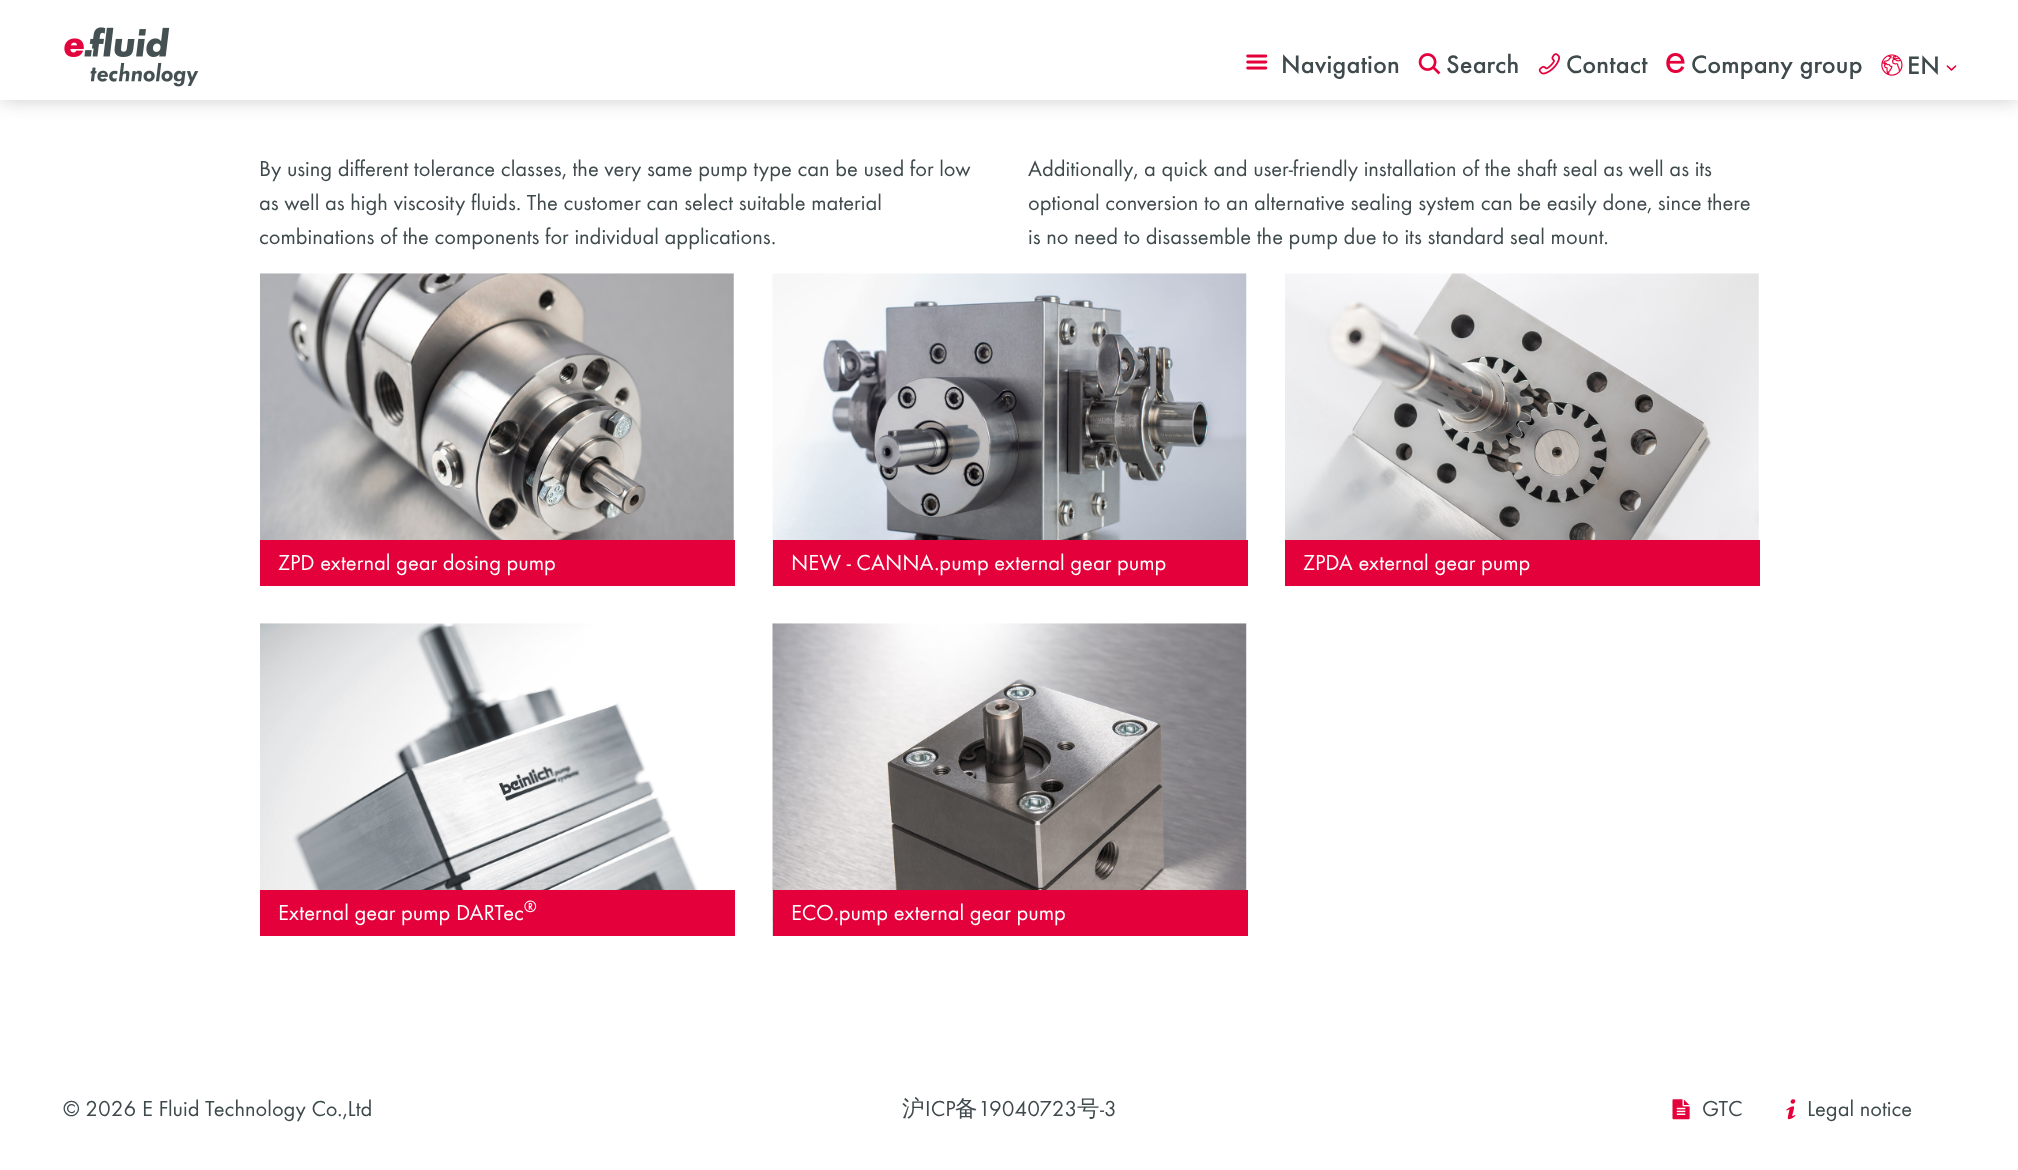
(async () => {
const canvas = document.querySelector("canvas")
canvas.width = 2018
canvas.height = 1170
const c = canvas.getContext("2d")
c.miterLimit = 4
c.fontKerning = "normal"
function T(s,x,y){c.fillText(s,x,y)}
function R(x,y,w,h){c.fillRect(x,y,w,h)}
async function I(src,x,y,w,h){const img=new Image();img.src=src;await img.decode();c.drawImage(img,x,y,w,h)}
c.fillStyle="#fff"
R(0,0,2018,1170)
c.fillStyle="#ccc"
c.filter="blur(9.5px)"
c.beginPath()
c.rect(0,0,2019,100)
c.fill()
c.filter="none"
c.fillStyle="#fff"
R(0,0,2018,100)
await I("1.png",64,27,135,60)
await I("2.png",1246,54,22,16)
c.font="500 26.25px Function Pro"
c.fillStyle="#3f4a4c"
T("Navigation",1281,73)
await I("3.png",1418,53,23,22)
T("Search",1446,73)
await I("4.png",1538,53,22,22)
T("Contact",1566,73)
await I("5.png",1666,53,19,20)
T("Company group",1691,73)
await I("6.png",1881,54,22,22)
T("EN",1907,74)
await I("7.png",1946,65,11,6)
c.font="22.5px Function Pro"
T("By using different tolerance classes, the very same pump type can be used for low",259,176)
T("as well as high viscosity fluids. The customer can select suitable material",259,210)
T("combinations of the components for individual applications.",259,244)
T("Additionally, a quick and user-friendly installation of the shaft seal as well as its",1028,176)
T("optional conversion to an alternative sealing system can be easily done, since there",1028,210)
T("is no need to disassemble the pump due to its standard seal mount.",1028,244)
await I("8.png",260,273,474,267)
c.fillStyle="#e4003a"
R(260,540,475,46)
c.fillStyle="#fff"
T("ZPD external gear dosing pump",278,570)
await I("9.png",772,273,475,313)
c.fillStyle="#e4003a"
R(773,540,475,46)
c.fillStyle="#fff"
T("NEW - CANNA.pump external gear pump",791,570)
await I("10.png",1285,273,474,267)
c.fillStyle="#e4003a"
R(1285,540,475,46)
c.fillStyle="#fff"
T("ZPDA external gear pump",1303,570)
await I("11.png",260,623,474,267)
c.fillStyle="#e4003a"
R(260,890,475,46)
c.fillStyle="#fff"
T("External gear pump DARTec",278,920)
c.font="17px Function Pro"
T("®",524,912)
await I("12.png",772,623,475,313)
c.fillStyle="#e4003a"
R(773,890,475,46)
c.font="22.5px Function Pro"
c.fillStyle="#fff"
T("ECO.pump external gear pump",791,920)
c.fillStyle="#3f4a4c"
T("© 2026 E Fluid Technology Co.,Ltd",63,1116)
c.font="500 22.5px WenQuanYi Zen Hei"
T("沪",902,1116)
c.font="22.5px Function Pro"
T("ICP",925,1116)
c.font="500 22.5px WenQuanYi Zen Hei"
T("备",955,1116)
c.font="22.5px Function Pro"
T("19040723",978,1116)
c.font="500 22.5px WenQuanYi Zen Hei"
T("号",1077,1116)
c.font="22.5px Function Pro"
T("-3",1100,1116)
await I("13.png",1672,1099,18,21)
T("GTC",1702,1116)
await I("14.png",1786,1099,10,21)
T("Legal notice",1807,1116)
})()
